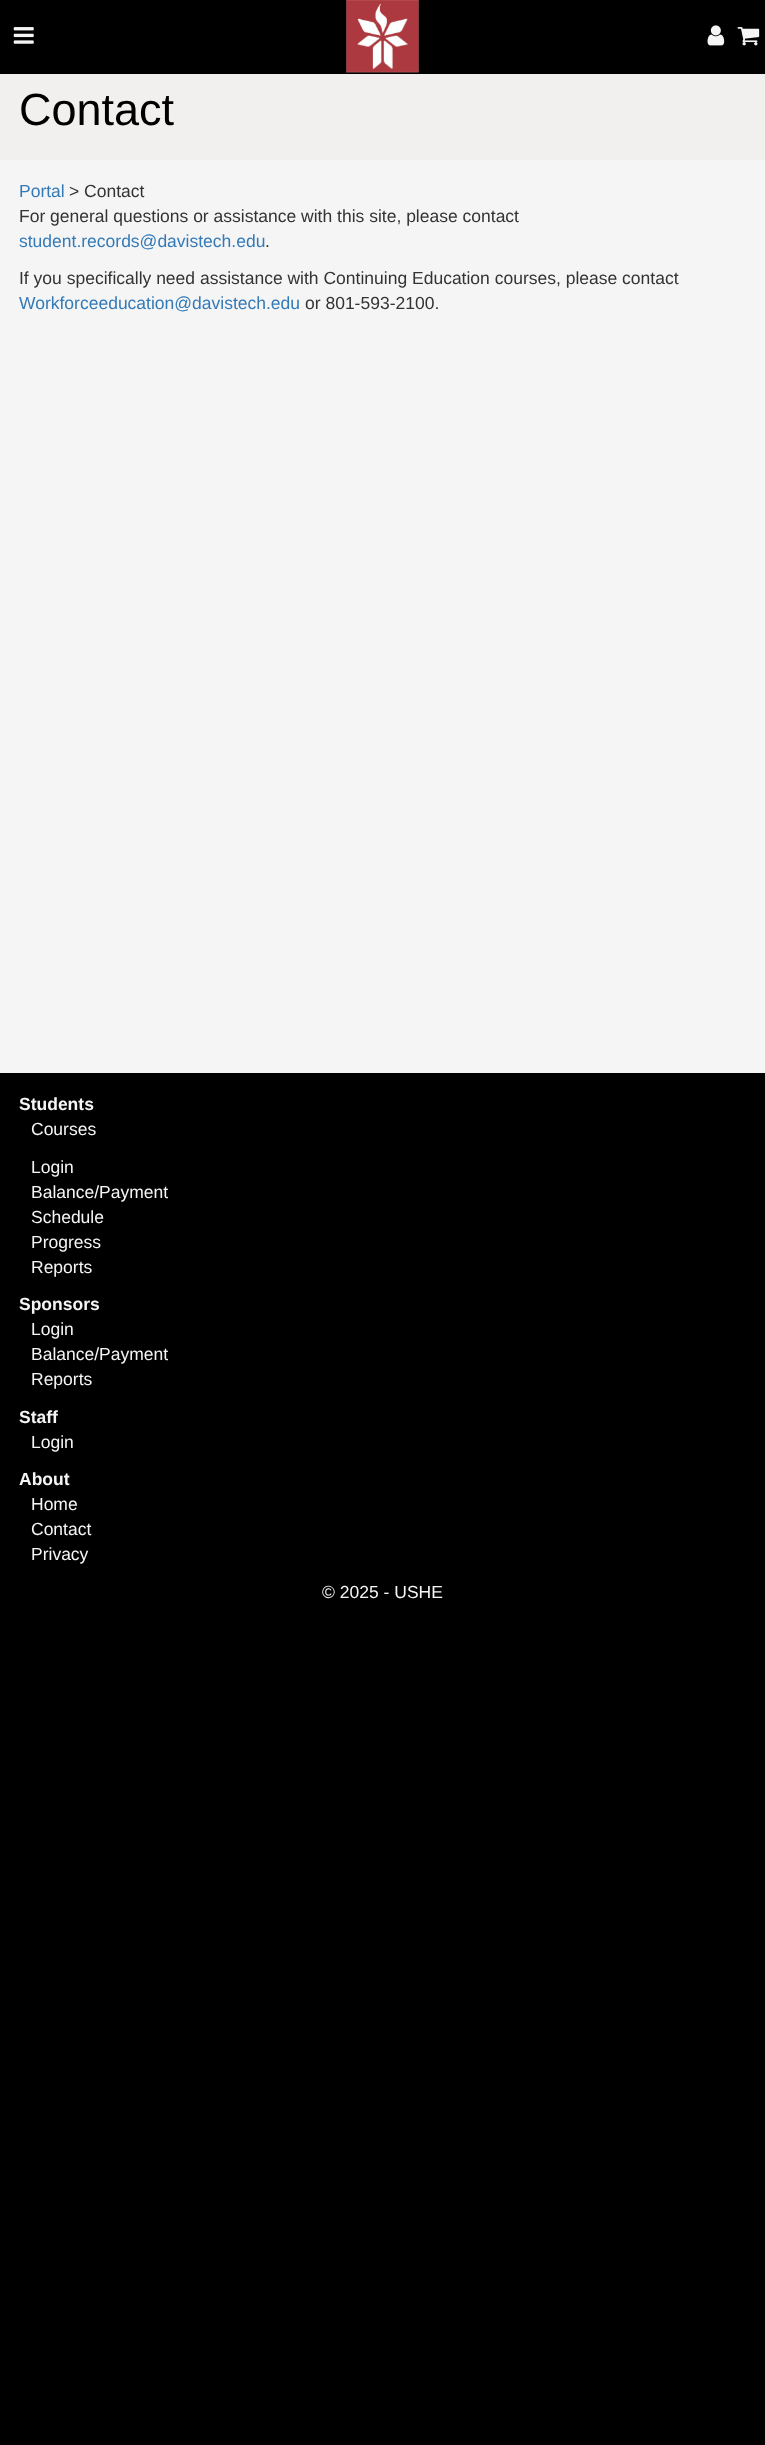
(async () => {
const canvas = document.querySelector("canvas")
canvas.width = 765
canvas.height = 2445
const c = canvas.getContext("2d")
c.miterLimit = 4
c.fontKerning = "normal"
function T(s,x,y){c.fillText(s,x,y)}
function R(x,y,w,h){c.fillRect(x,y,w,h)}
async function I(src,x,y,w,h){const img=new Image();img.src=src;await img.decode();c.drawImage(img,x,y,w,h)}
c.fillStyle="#000"
R(0,0,765,2445)
c.fillStyle="#f5f5f5"
R(0,160,765,913)
await I("1.png",13,27,21,17)
await I("2.png",346,0,73,73)
await I("3.png",707,25,18,21)
await I("4.png",737,27,23,19)
c.fillStyle="#f2efef"
R(0,74,765,86)
c.font="45px Liberation Sans"
c.fillStyle="#000"
T("Contact",19,125)
c.font="17.5px Liberation Sans"
c.fillStyle="#337ab7"
T("Portal",19,197)
c.fillStyle="#333"
T("> Contact",69,197)
T("For general questions or assistance with this site, please contact",19,222)
c.fillStyle="#337ab7"
T("student.records@davistech.edu",19,247)
c.fillStyle="#333"
T(".",265,247)
T("If you specifically need assistance with Continuing Education courses, please contact",19,284)
c.fillStyle="#337ab7"
T("Workforceeducation@davistech.edu",19,309)
c.fillStyle="#333"
T("or 801-593-2100.",305,309)
c.font="bold 17.5px Liberation Sans"
c.fillStyle="#f5f5f5"
T("Students",19,1110)
c.font="17.5px Liberation Sans"
T("Courses",31,1135)
T("Login",31,1173)
T("Balance/Payment",31,1198)
T("Schedule",31,1223)
T("Progress",31,1248)
T("Reports",31,1273)
c.font="bold 17.5px Liberation Sans"
T("Sponsors",19,1310)
c.font="17.5px Liberation Sans"
T("Login",31,1335)
T("Balance/Payment",31,1360)
T("Reports",31,1385)
c.font="bold 17.5px Liberation Sans"
T("Staff",19,1423)
c.font="17.5px Liberation Sans"
T("Login",31,1448)
c.font="bold 17.5px Liberation Sans"
T("About",19,1485)
c.font="17.5px Liberation Sans"
T("Home",31,1510)
T("Contact",31,1535)
T("Privacy",31,1560)
T("© 2025 - USHE",322,1598)
})()
